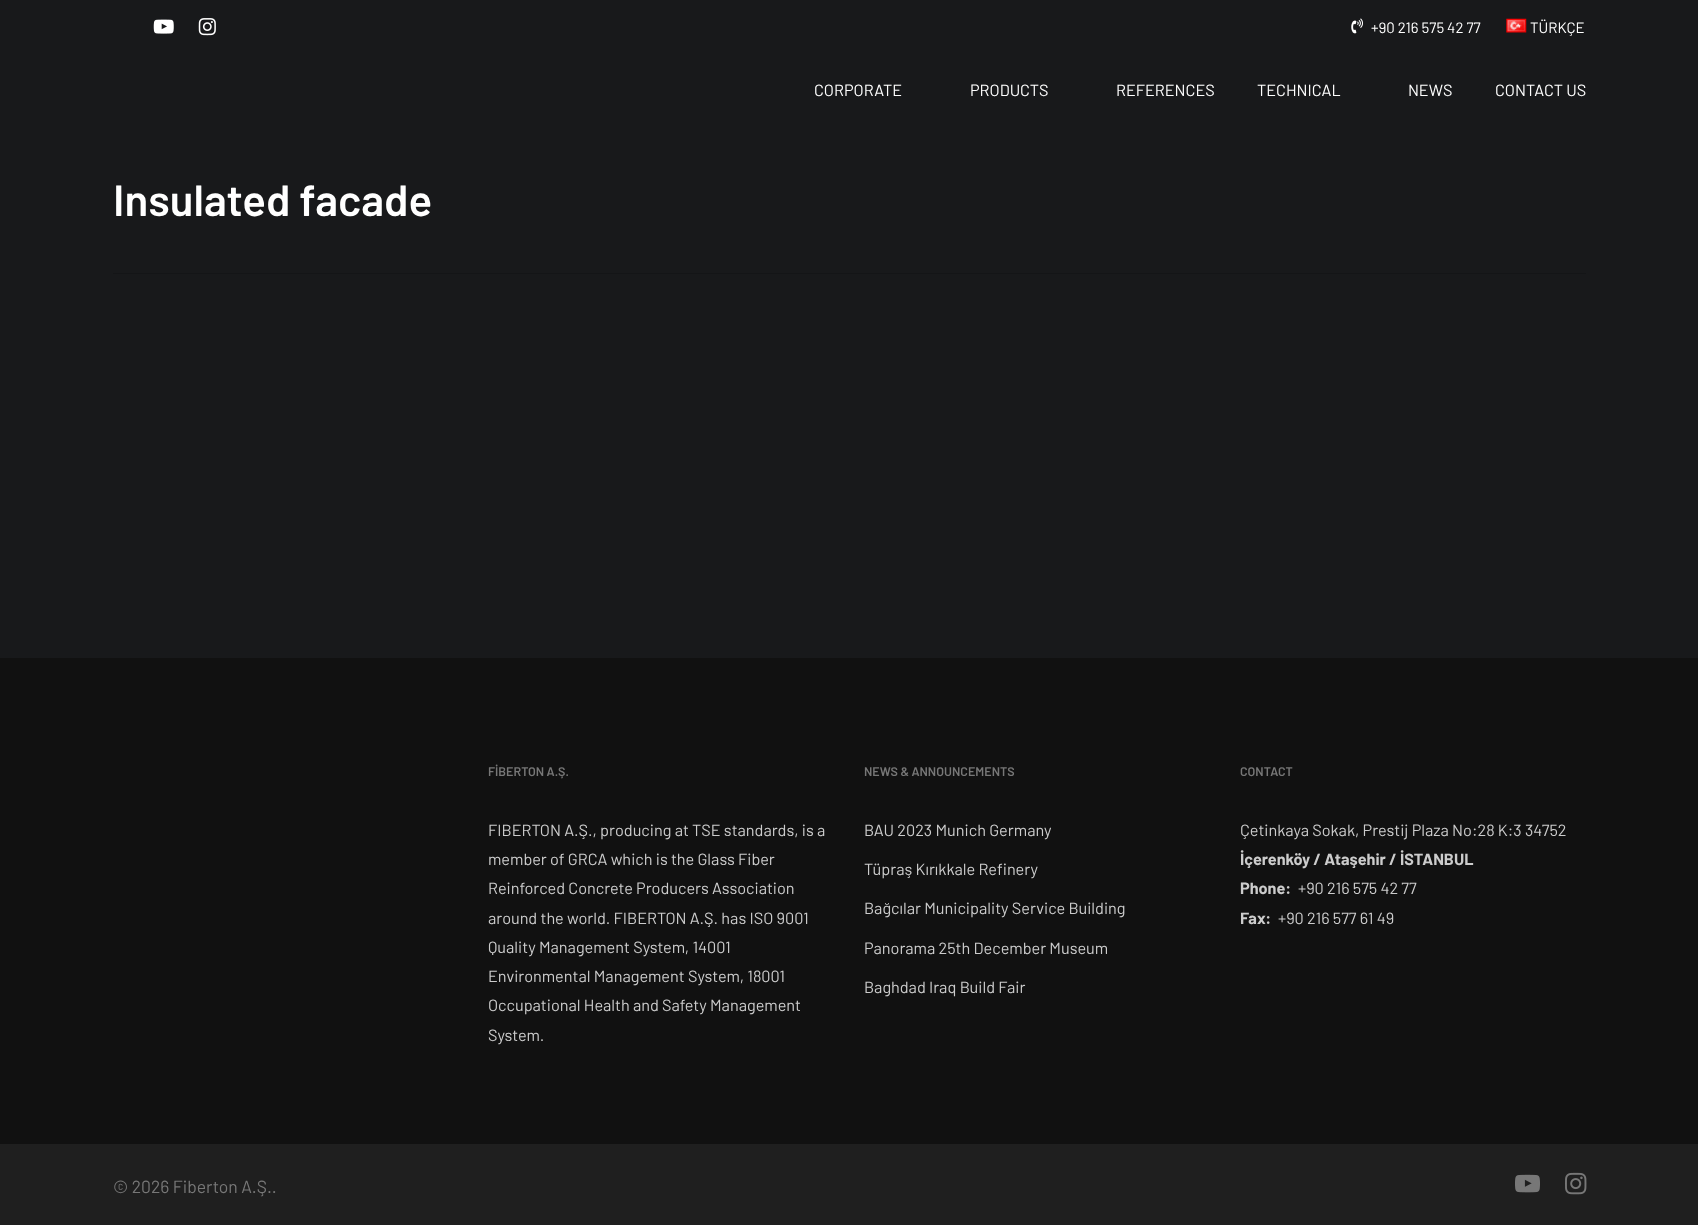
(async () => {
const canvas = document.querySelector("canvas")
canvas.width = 1698
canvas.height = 1225
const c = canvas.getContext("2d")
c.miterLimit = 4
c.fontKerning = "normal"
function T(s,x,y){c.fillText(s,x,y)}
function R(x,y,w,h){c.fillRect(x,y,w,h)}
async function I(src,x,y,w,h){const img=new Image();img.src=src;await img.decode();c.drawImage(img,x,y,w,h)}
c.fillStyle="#18191b"
R(0,0,1698,1225)
await I("1.png",153,19,21,15)
await I("2.png",198,18,18,18)
await I("3.png",1351,18,12,16)
c.font="15px Barlow"
c.fillStyle="#fff"
T("+90 216 575 42 77",1371,33)
await I("4.png",1506,18,21,15)
T("TÜRKÇE",1530,33)
c.font="16.25px Barlow"
T("CORPORATE",814,96)
T("PRODUCTS",970,96)
T("REFERENCES",1116,96)
T("TECHNICAL",1257,96)
T("NEWS",1408,96)
T("CONTACT US",1495,96)
c.fillStyle="#141517"
R(113,273,1473,1)
c.font="600 43.75px Barlow"
c.fillStyle="#fff"
T("Insulated facade",113,216)
c.fillStyle="#111"
R(0,658,1698,486)
c.font="600 12.5px Barlow"
c.fillStyle="#777"
T("FİBERTON A.Ş.",488,776)
c.font="16.25px Barlow"
c.fillStyle="#ccc"
T("FIBERTON A.Ş., producing at TSE standards, is a",488,836)
T("member of GRCA which is the Glass Fiber",488,865)
T("Reinforced Concrete Producers Association",488,894)
T("around the world. FIBERTON A.Ş. has ISO 9001",488,924)
T("Quality Management System, 14001",488,953)
T("Environmental Management System, 18001",488,982)
T("Occupational Health and Safety Management",488,1011)
T("System.",488,1041)
c.font="600 12.5px Barlow"
c.fillStyle="#777"
T("NEWS & ANNOUNCEMENTS",864,776)
c.font="16.25px Barlow"
c.fillStyle="#ccc"
T("BAU 2023 Munich Germany",864,836)
T("Tüpraş Kırıkkale Refinery",864,875)
T("Bağcılar Municipality Service Building",864,914)
T("Panorama 25th December Museum",864,954)
T("Baghdad Iraq Build Fair",864,993)
c.font="600 12.5px Barlow"
c.fillStyle="#777"
T("CONTACT",1240,776)
c.font="16.25px Barlow"
c.fillStyle="#ccc"
T("Çetinkaya Sokak, Prestij Plaza No:28 K:3 34752",1240,836)
c.font="bold 16.25px Barlow"
T("İçerenköy / Ataşehir / İSTANBUL",1240,865)
T("Phone:",1240,894)
c.font="16.25px Barlow"
T("+90 216 575 42 77",1298,894)
c.font="bold 16.25px Barlow"
T("Fax:",1240,924)
c.font="16.25px Barlow"
T("+90 216 577 61 49",1278,924)
c.fillStyle="#1f1f1f"
R(0,1144,1698,81)
c.font="17.5px Barlow"
c.fillStyle="#777"
T("© 2026 Fiberton A.Ş..",113,1193)
await I("5.png",1515,1174,25,19)
await I("6.png",1565,1172,22,23)
})()
